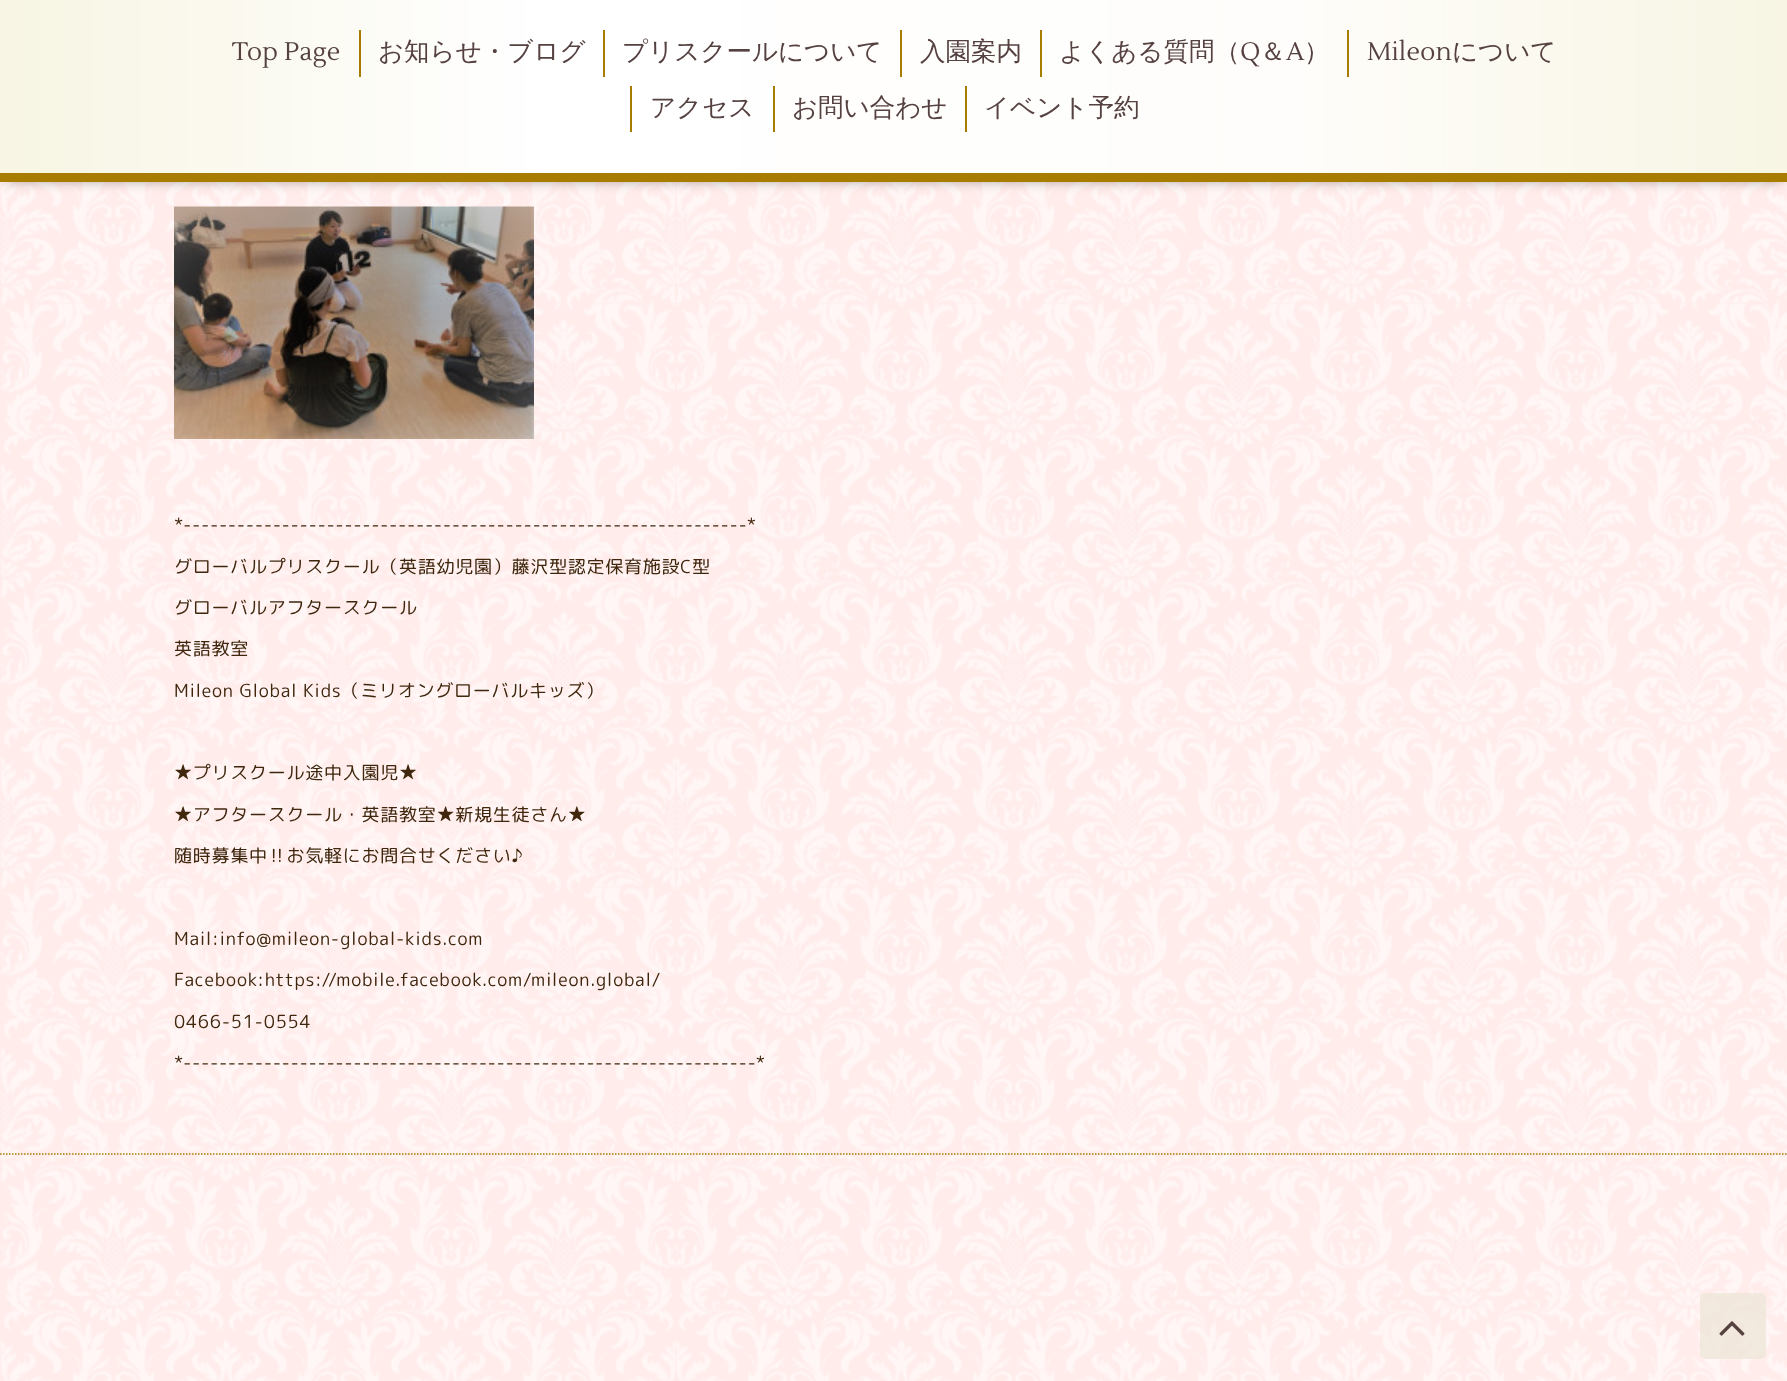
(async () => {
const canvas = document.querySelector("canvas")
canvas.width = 1787
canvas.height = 1381
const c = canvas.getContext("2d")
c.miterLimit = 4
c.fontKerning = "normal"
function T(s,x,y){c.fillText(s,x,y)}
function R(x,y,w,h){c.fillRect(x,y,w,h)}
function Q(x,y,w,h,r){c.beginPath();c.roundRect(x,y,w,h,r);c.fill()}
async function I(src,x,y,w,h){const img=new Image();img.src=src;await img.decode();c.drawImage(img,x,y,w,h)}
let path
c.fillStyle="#ffeceb"
R(0,0,1787,1381)
await I("1.png",0,182,1787,1199)
c.fillStyle="#00000099"
c.filter="blur(7.5px)"
c.beginPath()
c.rect(6,8,1776,169)
c.fill()
c.filter="none"
await I("2.png",0,0,1787,173)
c.fillStyle="#a87c00"
R(0,173,1787,9)
c.font="25.5px Lustria"
c.fillStyle="#564141"
T("Top Page",232,60)
c.fillStyle="#a87c00"
R(359,30,2,47)
c.font="500 25.5px WenQuanYi Zen Hei"
c.fillStyle="#564141"
T("お知らせ・ブログ",378,60)
c.fillStyle="#a87c00"
R(603,30,2,47)
c.fillStyle="#564141"
T("プリスクールについて",622,60)
c.fillStyle="#a87c00"
R(900,30,2,47)
c.fillStyle="#564141"
T("入園案内",920,60)
c.fillStyle="#a87c00"
R(1040,30,2,47)
c.fillStyle="#564141"
T("よくある質問（",1059,60)
c.font="25.5px Lustria"
T("Q",1240,60)
c.font="500 25.5px WenQuanYi Zen Hei"
T("＆",1260,60)
c.font="25.5px Lustria"
T("A",1286,60)
c.font="500 25.5px WenQuanYi Zen Hei"
T("）",1304,60)
c.fillStyle="#a87c00"
R(1347,30,2,47)
c.font="25.5px Lustria"
c.fillStyle="#564141"
T("Mileon",1367,60)
c.font="500 25.5px WenQuanYi Zen Hei"
T("について",1452,60)
c.fillStyle="#a87c00"
R(630,86,2,46)
c.fillStyle="#564141"
T("アクセス",650,116)
c.fillStyle="#a87c00"
R(773,86,2,46)
c.fillStyle="#564141"
T("お問い合わせ",792,116)
c.fillStyle="#a87c00"
R(965,86,2,46)
c.fillStyle="#564141"
T("イベント予約",984,116)
await I("3.png",174,206,360,233)
c.letterSpacing="0.75px"
c.font="18px 'Rounded Mplus 1c'"
c.fillStyle="#3f260d"
T("*---------------------------------------------------------------*",174,531)
T("グローバルプリスクール（英語幼児園）藤沢型認定保育施設C型",174,573)
T("グローバルアフタースクール",174,614)
T("英語教室",174,655)
T("Mileon Global Kids（ミリオングローバルキッズ）",174,697)
T("★プリスクール途中入園児★",174,779)
T("★アフタースクール・英語教室★新規生徒さん★",174,821)
T("随時募集中‼お気軽にお問合せください♪",174,862)
T("Mail:info@mileon-global-kids.com",174,945)
T("Facebook:https://mobile.facebook.com/mileon.global/",174,986)
T("0466-51-0554",174,1028)
T("*----------------------------------------------------------------*",174,1069)
path = new Path2D("M0 1154h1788")
c.strokeStyle="#a87c00"
c.lineWidth=1.5
c.setLineDash([1.5,1.5])
c.stroke(path)
c.fillStyle="#ede6d6b3"
Q(1700,1293,66,66,5)
await I("4.png",1719,1321,26,15)
})()
